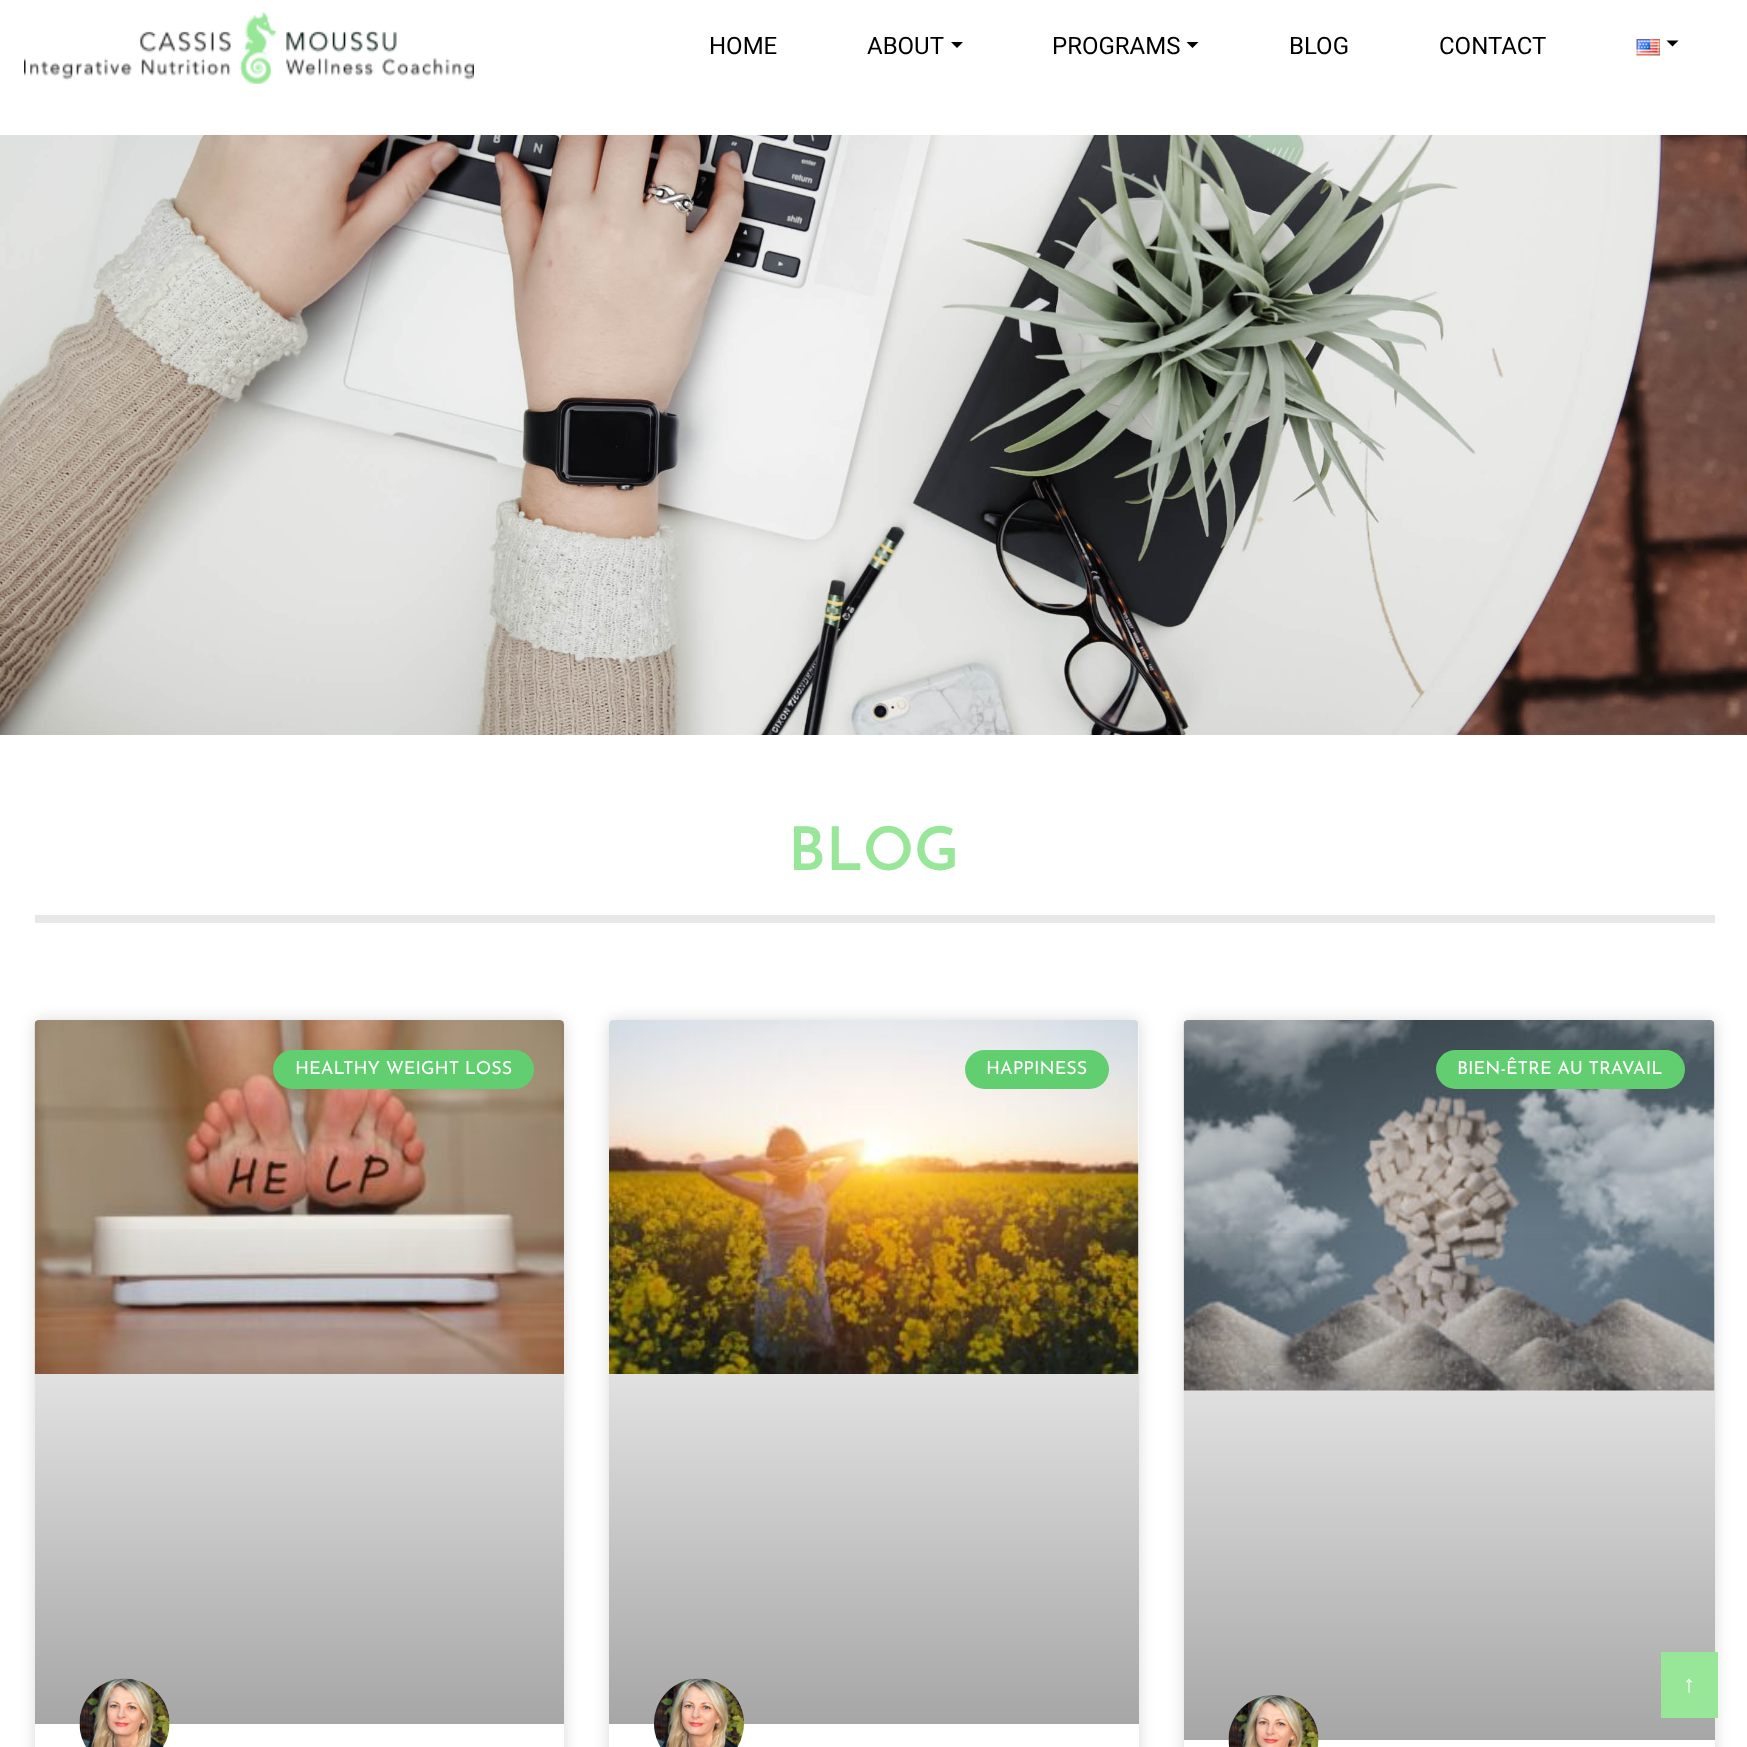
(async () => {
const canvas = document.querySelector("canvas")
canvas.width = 1747
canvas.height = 1747
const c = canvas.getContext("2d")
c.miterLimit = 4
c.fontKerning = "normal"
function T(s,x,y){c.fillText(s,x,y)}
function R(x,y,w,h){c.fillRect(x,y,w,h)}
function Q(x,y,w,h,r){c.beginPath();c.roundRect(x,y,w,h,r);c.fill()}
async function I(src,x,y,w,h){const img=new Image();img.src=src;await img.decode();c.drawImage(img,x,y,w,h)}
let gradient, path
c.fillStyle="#fff"
R(0,0,1747,1747)
await I("1.png",24,12,450,72)
c.font="24px Roboto"
c.fillStyle="#000"
T("HOME",709,54)
T("ABOUT",867,54)
path = new Path2D("M951 42h12l-6 6z")
c.fill(path)
T("PROGRAMS",1052,54)
path = new Path2D("M1186.5 42h12l-6 6z")
c.fill(path)
T("BLOG",1289,54)
T("CONTACT",1439,54)
await I("2.png",1636,39,24,17)
path = new Path2D("M1666.5 40.5h12l-6 6z")
c.fill(path)
await I("3.png",0,135,1747,600)
c.font="600 60px Josefin Sans"
c.fillStyle="#98e698"
T("BLOG",788,870)
c.fillStyle="#e8e8e8"
R(35,915,1680,8)
c.fillStyle="#00000026"
c.filter="blur(7.5px)"
c.beginPath()
c.roundRect(35,1020,529,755,5)
c.fill()
c.filter="none"
c.fillStyle="#fff"
Q(35,1020,529,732,5)
await I("4.png",34,1020,530,354)
gradient = c.createLinearGradient(299,1724,299,1020)
gradient.addColorStop(0,"#00000059")
gradient.addColorStop(.75,"#00000000")
c.fillStyle = gradient
R(35,1229,529,495)
c.fillStyle="#61ce70"
Q(273,1050,261,39,19.5)
c.font="100 18px Josefin Sans"
c.fillStyle="#fff"
T("HEALTHY WEIGHT LOSS",295,1074)
await I("5.png",79,1678,91,69)
c.fillStyle="#00000026"
c.filter="blur(7.5px)"
c.beginPath()
c.roundRect(609,1020,530,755,5)
c.fill()
c.filter="none"
c.fillStyle="#fff"
Q(609,1020,530,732,5)
await I("6.png",609,1020,530,354)
gradient = c.createLinearGradient(874,1724,874,1020)
gradient.addColorStop(0,"#00000059")
gradient.addColorStop(.75,"#00000000")
c.fillStyle = gradient
R(609,1229,530,495)
c.fillStyle="#61ce70"
Q(965,1050,144,39,19.5)
c.fillStyle="#fff"
T("HAPPINESS",986,1074)
await I("7.png",654,1678,90,69)
c.fillStyle="#00000026"
c.filter="blur(7.5px)"
c.beginPath()
c.roundRect(1184,1020,531,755,5)
c.fill()
c.filter="none"
c.fillStyle="#fff"
Q(1184,1020,531,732,5)
await I("8.png",1183,1020,532,371)
gradient = c.createLinearGradient(1449,1740,1449,1020)
gradient.addColorStop(0,"#00000059")
gradient.addColorStop(.75,"#00000000")
c.fillStyle = gradient
R(1184,1233,531,507)
c.fillStyle="#61ce70"
Q(1436,1050,249,39,19.5)
c.fillStyle="#fff"
T("BIEN-ÊTRE AU TRAVAIL",1457,1074)
await I("9.png",1228,1695,91,52)
c.fillStyle="#98e698"
R(1661,1652,57,66)
c.font="24px Liberation Sans"
c.fillStyle="#fff"
T("↑",1683,1692)
})()
